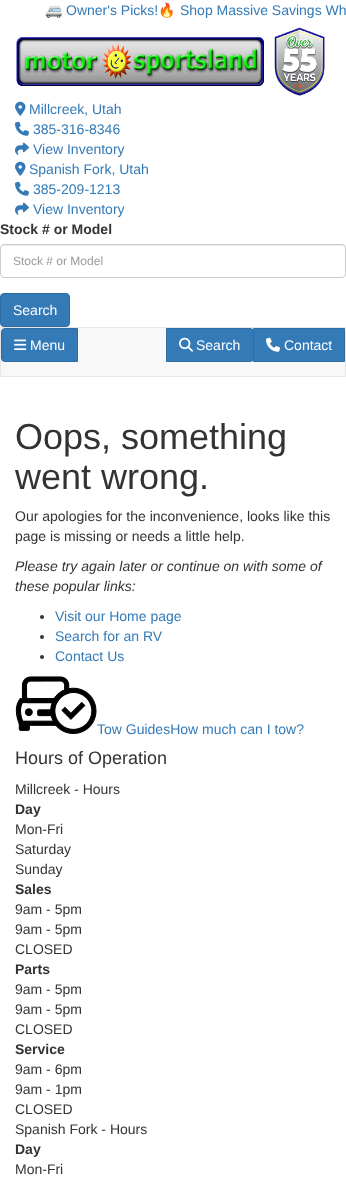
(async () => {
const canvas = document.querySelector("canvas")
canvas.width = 346
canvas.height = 1181
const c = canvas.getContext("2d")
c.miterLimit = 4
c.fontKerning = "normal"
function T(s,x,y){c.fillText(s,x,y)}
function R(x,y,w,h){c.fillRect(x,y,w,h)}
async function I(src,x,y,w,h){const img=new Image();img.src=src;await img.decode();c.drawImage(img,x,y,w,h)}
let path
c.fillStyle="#fff"
R(0,0,346,1181)
c.font="14px Noto Color Emoji"
c.fillStyle="#337ab7"
T("🚐",45,15)
c.font="14px Liberation Sans"
T("Owner's Picks!",66,15)
c.font="14px Noto Color Emoji"
T("🔥",158,15)
c.font="14px Liberation Sans"
T("Shop Massive Savings Wh",180,15)
await I("1.png",16,27,309,69)
await I("2.png",15,101,11,15)
T("Millcreek, Utah",29,114)
await I("3.png",15,121,14,15)
T("385-316-8346",33,134)
await I("4.png",15,142,14,13)
T("View Inventory",33,154)
await I("2.png",15,161,11,15)
T("Spanish Fork, Utah",29,174)
await I("3.png",15,181,14,15)
T("385-209-1213",33,194)
await I("4.png",15,202,14,13)
T("View Inventory",33,214)
c.font="bold 14px Liberation Sans"
c.fillStyle="#333"
T("Stock # or Model",0,234)
c.fillStyle="#ececec"
path = new Path2D("M4 246h338c2 0 3 1 3 3c0-2-1-4-3-4h-338c-2 0-3 2-3 4c0-2 1-3 3-3z")
c.fill(path)
c.beginPath()
c.roundRect(.5,244.5,345,33,3.5)
c.strokeStyle="#ccc"
c.stroke()
c.font="12px Liberation Sans"
c.fillStyle="#999"
T("Stock # or Model",13,265)
c.fillStyle="#337ab7"
c.beginPath()
c.roundRect(.5,293.5,69,33,3.5)
c.fill()
c.strokeStyle="#2e6da4"
c.stroke()
c.font="14px Liberation Sans"
c.fillStyle="#fff"
T("Search",13,315)
c.fillStyle="#f8f8f8"
c.beginPath()
c.rect(.5,327.5,345,49)
c.fill()
c.strokeStyle="#e7e7e7"
c.stroke()
c.fillStyle="#337ab7"
c.beginPath()
c.roundRect(1.5,328.5,76,33,[3.5,0,0,3.5])
c.fill()
c.strokeStyle="#2e6da4"
c.stroke()
await I("5.png",14,339,13,11)
c.fillStyle="#fff"
T("Menu",30,350)
c.fillStyle="#337ab7"
c.beginPath()
c.rect(253.5,328.5,91,33)
c.fill()
c.stroke()
c.beginPath()
c.roundRect(166.5,328.5,87,33,[0,3.5,3.5,0])
c.fill()
c.stroke()
await I("6.png",179,337,14,15)
c.fillStyle="#fff"
T("Search",196,350)
await I("7.png",266,337,14,15)
T("Contact",284,350)
c.font="36px Liberation Sans"
c.fillStyle="#333"
T("Oops, something",15,449)
T("went wrong.",15,489)
c.font="14px Liberation Sans"
T("Our apologies for the inconvenience, looks like this",15,521)
T("page is missing or needs a little help.",15,541)
c.font="italic 14px Liberation Sans"
T("Please try again later or continue on with some of",15,571)
T("these popular links:",15,591)
c.beginPath()
c.arc(42,617,2,0,7)
c.fill()
c.font="14px Liberation Sans"
c.fillStyle="#337ab7"
T("Visit our Home page",55,621)
c.fillStyle="#333"
c.beginPath()
c.arc(42,637,2,0,7)
c.fill()
c.fillStyle="#337ab7"
T("Search for an RV",55,641)
c.fillStyle="#333"
c.beginPath()
c.arc(42,657,2,0,7)
c.fill()
c.fillStyle="#337ab7"
T("Contact Us",55,661)
await I("8.png",15,676,82,58)
T("Tow GuidesHow much can I tow?",97,734)
c.font="18px Liberation Sans"
c.fillStyle="#333"
T("Hours of Operation",15,764)
c.font="14px Liberation Sans"
T("Millcreek - Hours",15,794)
c.font="bold 14px Liberation Sans"
T("Day",15,814)
c.font="14px Liberation Sans"
T("Mon-Fri",15,834)
T("Saturday",15,854)
T("Sunday",15,874)
c.font="bold 14px Liberation Sans"
T("Sales",15,894)
c.font="14px Liberation Sans"
T("9am - 5pm",15,914)
T("9am - 5pm",15,934)
T("CLOSED",15,954)
c.font="bold 14px Liberation Sans"
T("Parts",15,974)
c.font="14px Liberation Sans"
T("9am - 5pm",15,994)
T("9am - 5pm",15,1014)
T("CLOSED",15,1034)
c.font="bold 14px Liberation Sans"
T("Service",15,1054)
c.font="14px Liberation Sans"
T("9am - 6pm",15,1074)
T("9am - 1pm",15,1094)
T("CLOSED",15,1114)
T("Spanish Fork - Hours",15,1134)
c.font="bold 14px Liberation Sans"
T("Day",15,1154)
c.font="14px Liberation Sans"
T("Mon-Fri",15,1174)
})()
